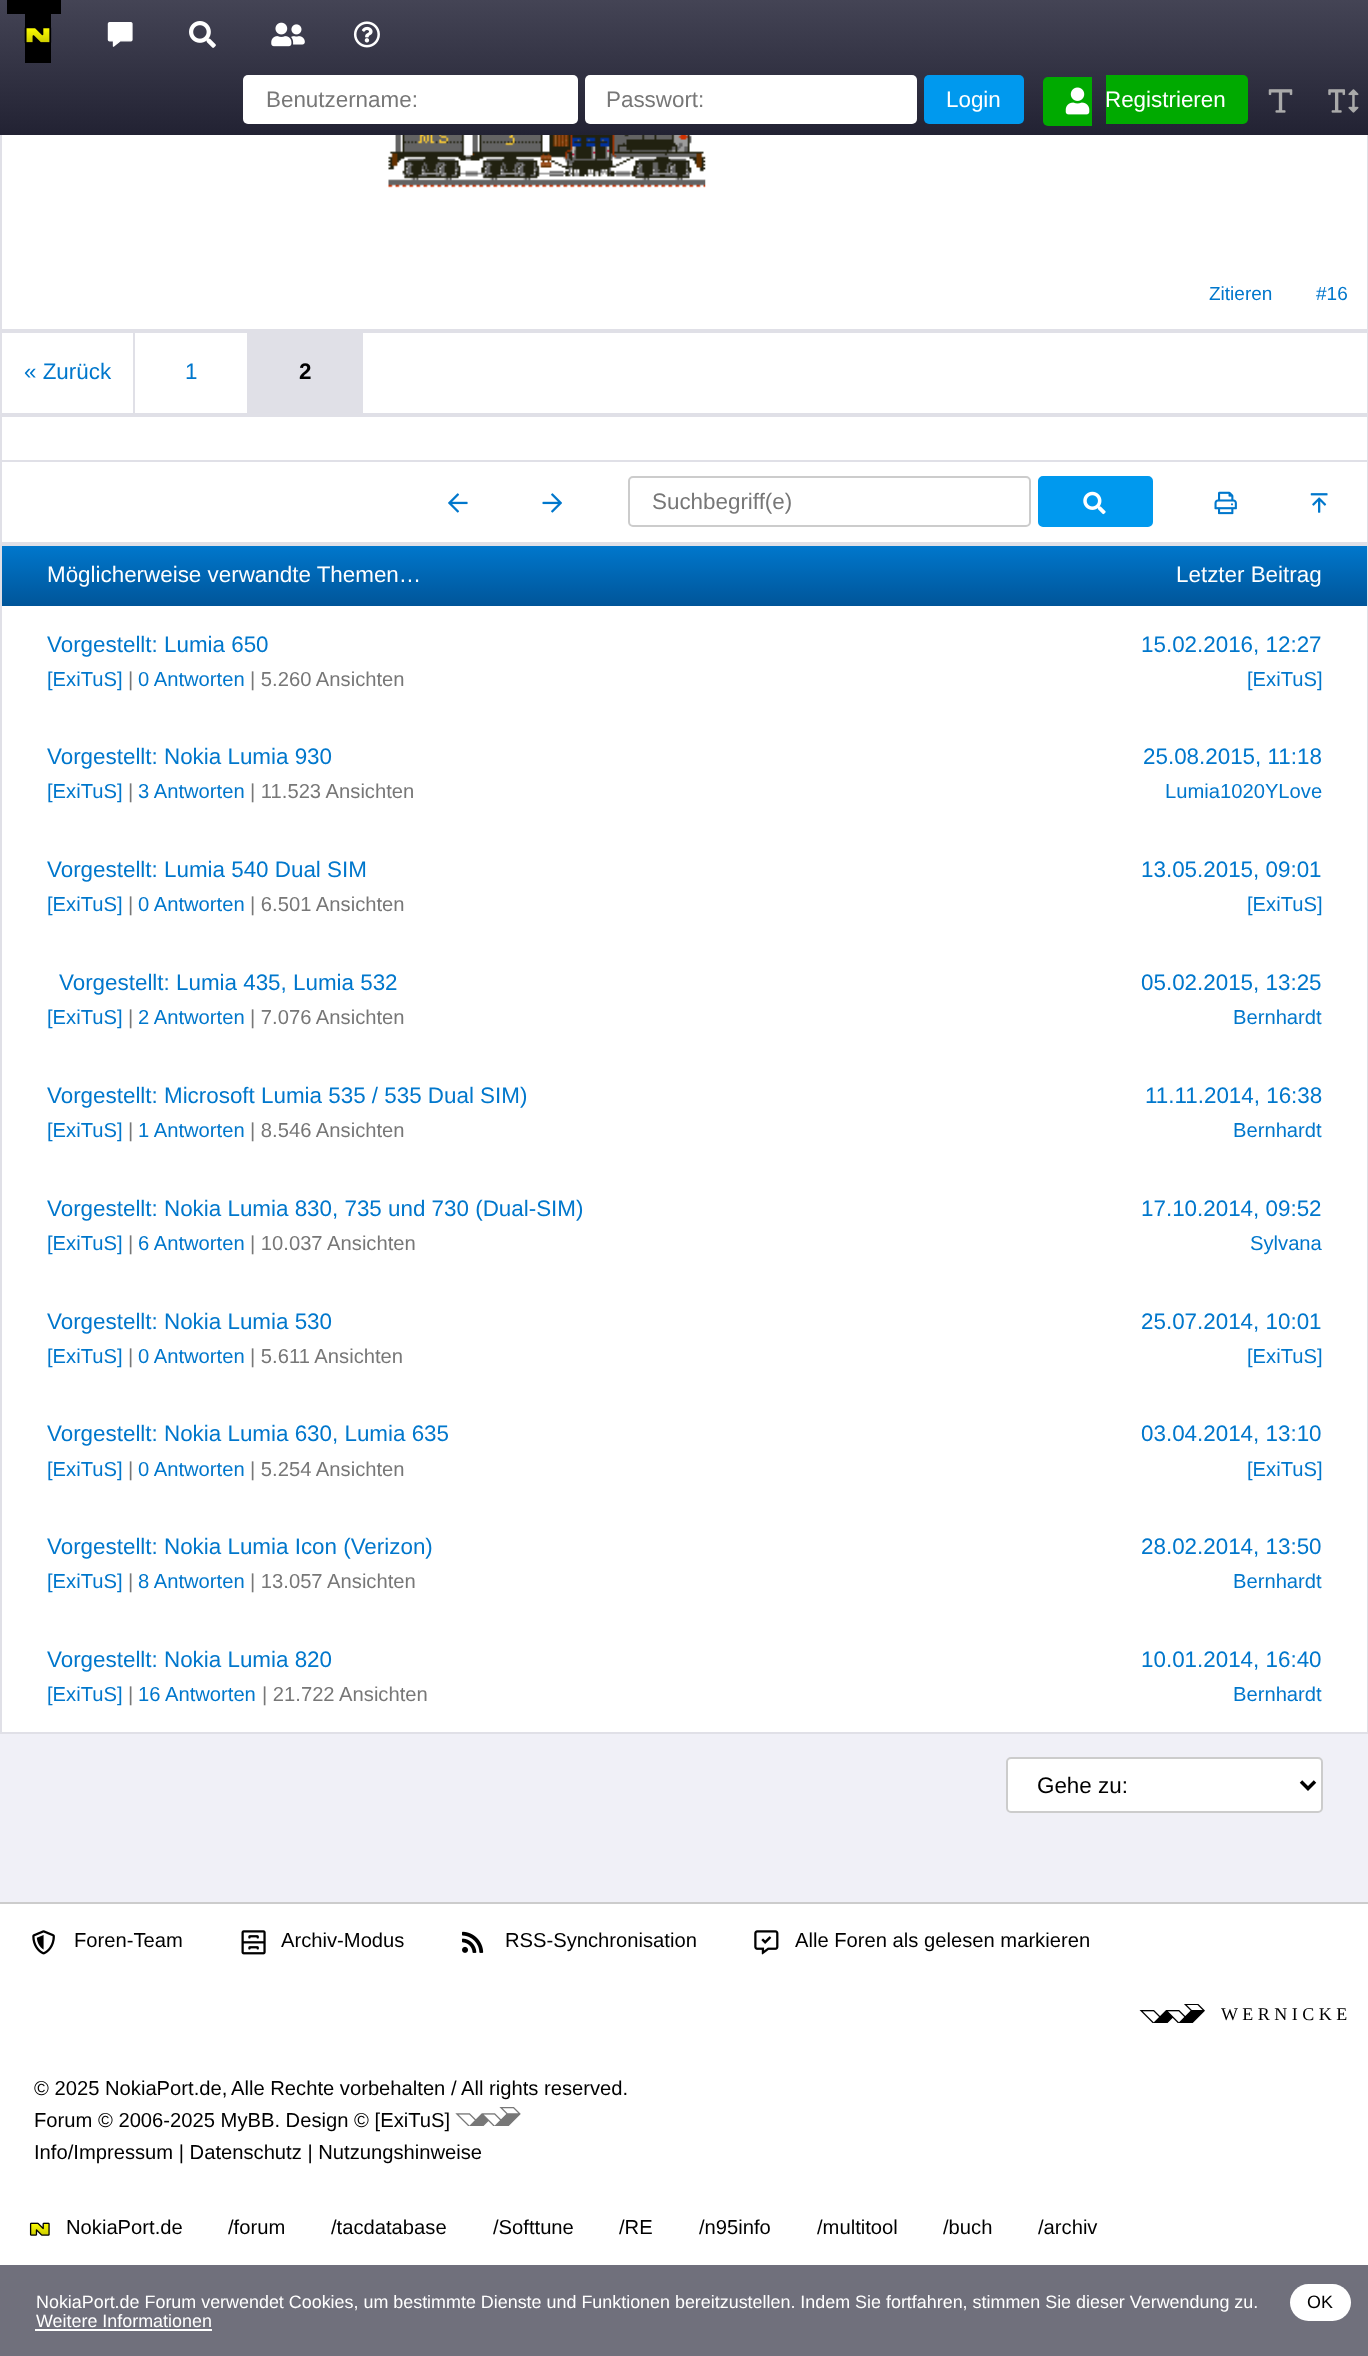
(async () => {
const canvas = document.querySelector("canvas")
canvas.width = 1368
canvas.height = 2356
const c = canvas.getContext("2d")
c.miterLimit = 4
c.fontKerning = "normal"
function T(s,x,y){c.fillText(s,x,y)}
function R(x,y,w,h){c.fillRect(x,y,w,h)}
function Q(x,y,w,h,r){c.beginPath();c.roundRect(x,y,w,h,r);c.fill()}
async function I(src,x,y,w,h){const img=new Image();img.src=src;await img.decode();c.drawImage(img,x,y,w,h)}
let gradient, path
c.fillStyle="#f0f0f7"
R(0,0,1368,2356)
c.fillStyle="#fff"
R(2,135,1365,194)
c.strokeStyle="#e0e0e7"
c.lineWidth=2
c.strokeRect(1,-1,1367,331)
gradient = c.createLinearGradient(684,0,684,135)
gradient.addColorStop(0,"#445")
gradient.addColorStop(1,"#223")
c.fillStyle = gradient
R(0,0,1368,135)
c.fillStyle="#000"
R(7,0,54,14)
R(25,14,26,49)
await I("1.png",107,22,26,25)
await I("2.png",189,21,27,27)
await I("3.png",271,22,34,25)
await I("4.png",353,21,27,27)
await I("5.png",24,27,28,16)
c.fillStyle="#fff"
Q(243,75,335,49,5)
c.font="22.4px Liberation Sans"
c.fillStyle="#777"
T("Benutzername:",266,107)
c.fillStyle="#fff"
Q(585,75,332,49,5)
c.fillStyle="#777"
T("Passwort:",606,107)
c.fillStyle="#09e"
Q(924,75,100,49,5)
c.fillStyle="#fff"
T("Login",946,107)
c.fillStyle="#0a0"
c.beginPath()
c.roundRect(1043,77,49,49,[5,0,0,5])
c.fill()
await I("6.png",1065,87,25,28)
c.beginPath()
c.roundRect(1106,75,142,49,[0,5,5,0])
c.fill()
c.fillStyle="#fff"
T("Registrieren",1105,107)
await I("7.png",1268,89,25,24)
await I("8.png",1328,89,31,24)
await I("9.png",388,135,318,53)
c.font="19px Liberation Sans"
c.fillStyle="#07c"
T("Zitieren",1209,300)
T("#16",1316,300)
c.fillStyle="#fff"
c.beginPath()
c.rect(1,332,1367,82)
c.fill()
c.stroke()
c.fillStyle="#e0e0e7"
R(133,333,2,80)
c.font="22.4px Liberation Sans"
c.fillStyle="#07c"
T("« Zurück",24,379)
c.fillStyle="#e0e0e7"
R(247,333,116,80)
c.fillStyle="#07c"
T("1",185,379)
c.font="bold 22.4px Liberation Sans"
c.fillStyle="#000"
T("2",299,379)
c.fillStyle="#fff"
c.beginPath()
c.rect(1,416,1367,127)
c.fill()
c.stroke()
c.fillStyle="#e0e0e7"
R(2,460,1365,2)
await I("10.png",448,493,20,20)
await I("11.png",542,493,20,20)
c.beginPath()
c.roundRect(629,477,401,49,4)
c.strokeStyle="#ccc"
c.stroke()
c.font="22.4px Liberation Sans"
c.fillStyle="#777"
T("Suchbegriff(e)",652,509)
c.fillStyle="#09e"
c.beginPath()
c.roundRect(1039,477,113,49,4)
c.fill()
c.strokeStyle="#09e"
c.stroke()
await I("12.png",1083,491,23,24)
await I("13.png",1214,491,23,24)
await I("14.png",1310,493,18,20)
c.fillStyle="#fff"
R(2,606,1365,1126)
c.strokeStyle="#e0e0e7"
c.strokeRect(1,545,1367,1188)
gradient = c.createLinearGradient(684,546,684,606)
gradient.addColorStop(0,"#07c")
gradient.addColorStop(1,"#059")
c.fillStyle = gradient
R(2,546,1365,60)
c.fillStyle="#fff"
T("Möglicherweise verwandte Themen…",47,582)
T("Letzter Beitrag",1176,582)
c.fillStyle="#07c"
T("Vorgestellt: Lumia 650",47,652)
c.font="20.2px Liberation Sans"
T("[ExiTuS]",47,686)
c.fillStyle="#777"
T("|",128,686)
c.fillStyle="#07c"
T("0 Antworten",138,686)
c.fillStyle="#777"
T("| 5.260 Ansichten",250,686)
c.font="22.4px Liberation Sans"
c.fillStyle="#07c"
T("15.02.2016, 12:27",1141,652)
c.font="20.2px Liberation Sans"
T("[ExiTuS]",1247,686)
c.font="22.4px Liberation Sans"
T("Vorgestellt: Nokia Lumia 930",47,764)
c.font="20.2px Liberation Sans"
T("[ExiTuS]",47,798)
c.fillStyle="#777"
T("|",128,798)
c.fillStyle="#07c"
T("3 Antworten",138,798)
c.fillStyle="#777"
T("| 11.523 Ansichten",250,798)
c.font="22.4px Liberation Sans"
c.fillStyle="#07c"
T("25.08.2015, 11:18",1143,764)
c.font="20.2px Liberation Sans"
T("Lumia1020YLove",1165,798)
c.font="22.4px Liberation Sans"
T("Vorgestellt: Lumia 540 Dual SIM",47,877)
c.font="20.2px Liberation Sans"
T("[ExiTuS]",47,911)
c.fillStyle="#777"
T("|",128,911)
c.fillStyle="#07c"
T("0 Antworten",138,911)
c.fillStyle="#777"
T("| 6.501 Ansichten",250,911)
c.font="22.4px Liberation Sans"
c.fillStyle="#07c"
T("13.05.2015, 09:01",1141,877)
c.font="20.2px Liberation Sans"
T("[ExiTuS]",1247,911)
c.font="22.4px Liberation Sans"
T("Vorgestellt: Lumia 435, Lumia 532",59,990)
c.font="20.2px Liberation Sans"
T("[ExiTuS]",47,1024)
c.fillStyle="#777"
T("|",128,1024)
c.fillStyle="#07c"
T("2 Antworten",138,1024)
c.fillStyle="#777"
T("| 7.076 Ansichten",250,1024)
c.font="22.4px Liberation Sans"
c.fillStyle="#07c"
T("05.02.2015, 13:25",1141,990)
c.font="20.2px Liberation Sans"
T("Bernhardt",1233,1024)
c.font="22.4px Liberation Sans"
T("Vorgestellt: Microsoft Lumia 535 / 535 Dual SIM)",47,1103)
c.font="20.2px Liberation Sans"
T("[ExiTuS]",47,1137)
c.fillStyle="#777"
T("|",128,1137)
c.fillStyle="#07c"
T("1 Antworten",138,1137)
c.fillStyle="#777"
T("| 8.546 Ansichten",250,1137)
c.font="22.4px Liberation Sans"
c.fillStyle="#07c"
T("11.11.2014, 16:38",1145,1103)
c.font="20.2px Liberation Sans"
T("Bernhardt",1233,1137)
c.font="22.4px Liberation Sans"
T("Vorgestellt: Nokia Lumia 830, 735 und 730 (Dual-SIM)",47,1216)
c.font="20.2px Liberation Sans"
T("[ExiTuS]",47,1250)
c.fillStyle="#777"
T("|",128,1250)
c.fillStyle="#07c"
T("6 Antworten",138,1250)
c.fillStyle="#777"
T("| 10.037 Ansichten",250,1250)
c.font="22.4px Liberation Sans"
c.fillStyle="#07c"
T("17.10.2014, 09:52",1141,1216)
c.font="20.2px Liberation Sans"
T("Sylvana",1250,1250)
c.font="22.4px Liberation Sans"
T("Vorgestellt: Nokia Lumia 530",47,1329)
c.font="20.2px Liberation Sans"
T("[ExiTuS]",47,1363)
c.fillStyle="#777"
T("|",128,1363)
c.fillStyle="#07c"
T("0 Antworten",138,1363)
c.fillStyle="#777"
T("| 5.611 Ansichten",250,1363)
c.font="22.4px Liberation Sans"
c.fillStyle="#07c"
T("25.07.2014, 10:01",1141,1329)
c.font="20.2px Liberation Sans"
T("[ExiTuS]",1247,1363)
c.font="22.4px Liberation Sans"
T("Vorgestellt: Nokia Lumia 630, Lumia 635",47,1441)
c.font="20.2px Liberation Sans"
T("[ExiTuS]",47,1476)
c.fillStyle="#777"
T("|",128,1476)
c.fillStyle="#07c"
T("0 Antworten",138,1476)
c.fillStyle="#777"
T("| 5.254 Ansichten",250,1476)
c.font="22.4px Liberation Sans"
c.fillStyle="#07c"
T("03.04.2014, 13:10",1141,1441)
c.font="20.2px Liberation Sans"
T("[ExiTuS]",1247,1476)
c.font="22.4px Liberation Sans"
T("Vorgestellt: Nokia Lumia Icon (Verizon)",47,1554)
c.font="20.2px Liberation Sans"
T("[ExiTuS]",47,1588)
c.fillStyle="#777"
T("|",128,1588)
c.fillStyle="#07c"
T("8 Antworten",138,1588)
c.fillStyle="#777"
T("| 13.057 Ansichten",250,1588)
c.font="22.4px Liberation Sans"
c.fillStyle="#07c"
T("28.02.2014, 13:50",1141,1554)
c.font="20.2px Liberation Sans"
T("Bernhardt",1233,1588)
c.font="22.4px Liberation Sans"
T("Vorgestellt: Nokia Lumia 820",47,1667)
c.font="20.2px Liberation Sans"
T("[ExiTuS]",47,1701)
c.fillStyle="#777"
T("|",128,1701)
c.fillStyle="#07c"
T("16 Antworten",138,1701)
c.fillStyle="#777"
T("| 21.722 Ansichten",262,1701)
c.font="22.4px Liberation Sans"
c.fillStyle="#07c"
T("10.01.2014, 16:40",1141,1667)
c.font="20.2px Liberation Sans"
T("Bernhardt",1233,1701)
c.fillStyle="#fff"
c.beginPath()
c.roundRect(1007,1758,315,54,4)
c.fill()
c.strokeStyle="#ccc"
c.stroke()
path = new Path2D("M1301 1781.5l7 7l7-7")
c.strokeStyle="#000"
c.lineWidth=3.5
c.stroke(path)
c.font="22.4px Liberation Sans"
c.fillStyle="#000"
T("Gehe zu:",1037,1793)
c.fillStyle="#fff"
R(0,1904,1368,361)
c.fillStyle="#ccc"
R(0,1902,1368,2)
await I("15.png",32,1930,23,25)
c.font="20.2px Liberation Sans"
c.fillStyle="#000"
T("Foren-Team",74,1947)
await I("16.png",241,1930,25,25)
T("Archiv-Modus",281,1947)
await I("17.png",462,1931,22,22)
T("RSS-Synchronisation",505,1947)
await I("18.png",754,1930,25,25)
T("Alle Foren als gelesen markieren",795,1947)
await I("19.png",1139,2004,66,19)
c.font="18px Liberation Serif"
T("W E R N I C K E",1221,2020)
c.font="20.2px Liberation Sans"
T("© 2025 NokiaPort.de,",34,2095)
T("Alle Rechte vorbehalten /",231,2095)
T("All rights reserved.",461,2095)
T("Forum © 2006-2025 MyBB. Design © [ExiTuS]",34,2127)
await I("20.png",455,2107,66,19)
T("Info/Impressum | Datenschutz | Nutzungshinweise",34,2159)
await I("21.png",29,2222,21,14)
T("NokiaPort.de",66,2234)
T("/forum",228,2234)
T("/tacdatabase",331,2234)
T("/Softtune",493,2234)
T("/RE",619,2234)
T("/n95info",699,2234)
T("/multitool",817,2234)
T("/buch",943,2234)
T("/archiv",1038,2234)
c.fillStyle="#70707c"
R(0,2265,1368,91)
c.font="17.92px Liberation Sans"
c.fillStyle="#fff"
T("NokiaPort.de Forum verwendet Cookies, um bestimmte Dienste und Funktionen bereitzustellen. Indem Sie fortfahren, stimmen Sie dieser Verwendung zu.",36,2308)
T("Weitere Informationen",36,2327)
R(35,2329,177,2)
Q(1290,2284,61,37,18.5)
c.fillStyle="#000"
T("OK",1307,2308)
})()
